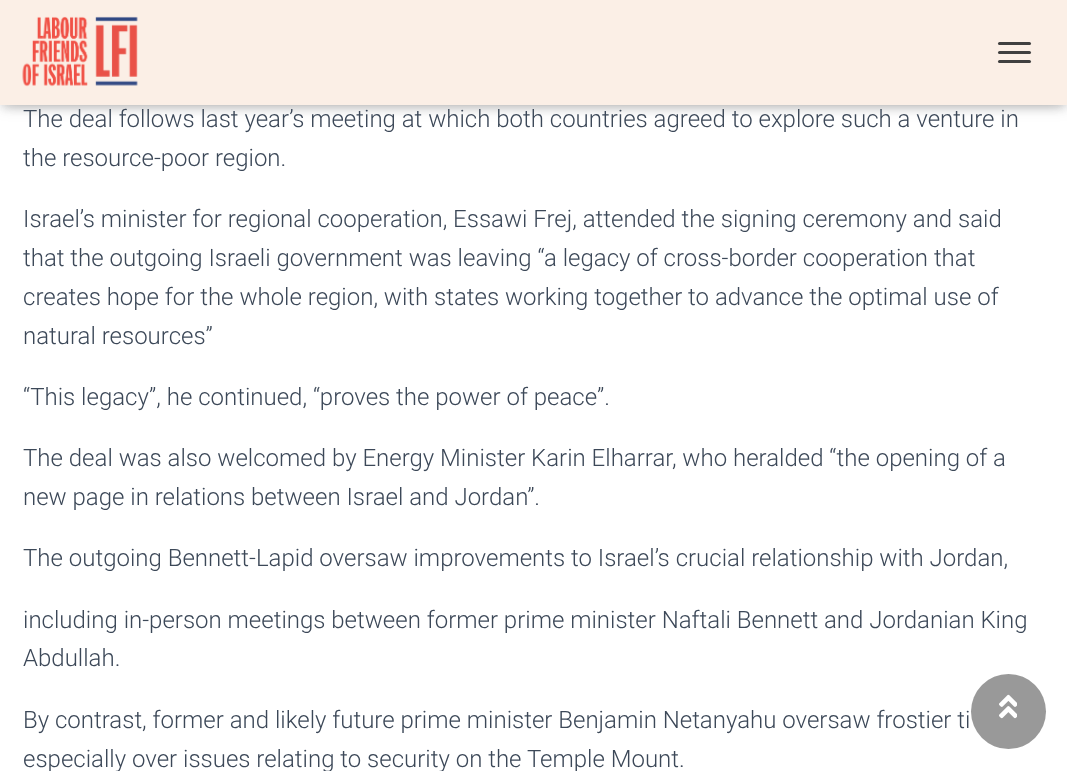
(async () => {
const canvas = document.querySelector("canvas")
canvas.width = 1067
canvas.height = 771
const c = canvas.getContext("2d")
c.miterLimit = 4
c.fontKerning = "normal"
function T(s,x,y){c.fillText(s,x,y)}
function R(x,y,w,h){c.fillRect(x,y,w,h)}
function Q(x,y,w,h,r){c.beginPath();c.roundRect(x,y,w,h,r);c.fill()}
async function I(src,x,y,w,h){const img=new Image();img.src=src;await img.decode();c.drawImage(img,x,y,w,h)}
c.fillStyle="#fff"
R(0,0,1067,771)
c.fillStyle="#0000001a"
c.filter="blur(4px)"
c.beginPath()
c.rect(3,9,1062,99)
c.fill()
c.filter="none"
c.fillStyle="#0000001f"
c.filter="blur(7.5px)"
c.beginPath()
c.rect(0,2,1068,105)
c.fill()
c.filter="none"
c.fillStyle="#0000006b"
c.filter="blur(7.5px)"
c.beginPath()
c.rect(9,11,1050,87)
c.fill()
c.filter="none"
c.fillStyle="#fbefe6"
R(0,0,1067,105)
await I("1.png",22,16,116,71)
c.fillStyle="#404040"
Q(998,42,33,3,1.5)
Q(998,51,33,3,1.5)
Q(998,60,33,3,1.5)
c.font="300 24px Roboto"
c.fillStyle="#3c4858"
T("The deal follows last year’s meeting at which both countries agreed to explore such a venture in",23,127)
T("the resource-poor region.",23,166)
T("Israel’s minister for regional cooperation, Essawi Frej, attended the signing ceremony and said",23,227)
T("that the outgoing Israeli government was leaving “a legacy of cross-border cooperation that",23,266)
T("creates hope for the whole region, with states working together to advance the optimal use of",23,305)
T("natural resources”",23,344)
T("“This legacy”, he continued, “proves the power of peace”.",23,405)
T("The deal was also welcomed by Energy Minister Karin Elharrar, who heralded “the opening of a",23,466)
T("new page in relations between Israel and Jordan”.",23,505)
T("The outgoing Bennett-Lapid oversaw improvements to Israel’s crucial relationship with Jordan,",23,566)
T("including in-person meetings between former prime minister Naftali Bennett and Jordanian King",23,628)
T("Abdullah.",23,666)
T("By contrast, former and likely future prime minister Benjamin Netanyahu oversaw frostier ti",23,728)
T("especially over issues relating to security on the Temple Mount.",23,767)
c.fillStyle="#999"
c.beginPath()
c.arc(1008.5,711.5,37.5,0,7)
c.fill()
await I("2.png",999,694,18,25)
})()
